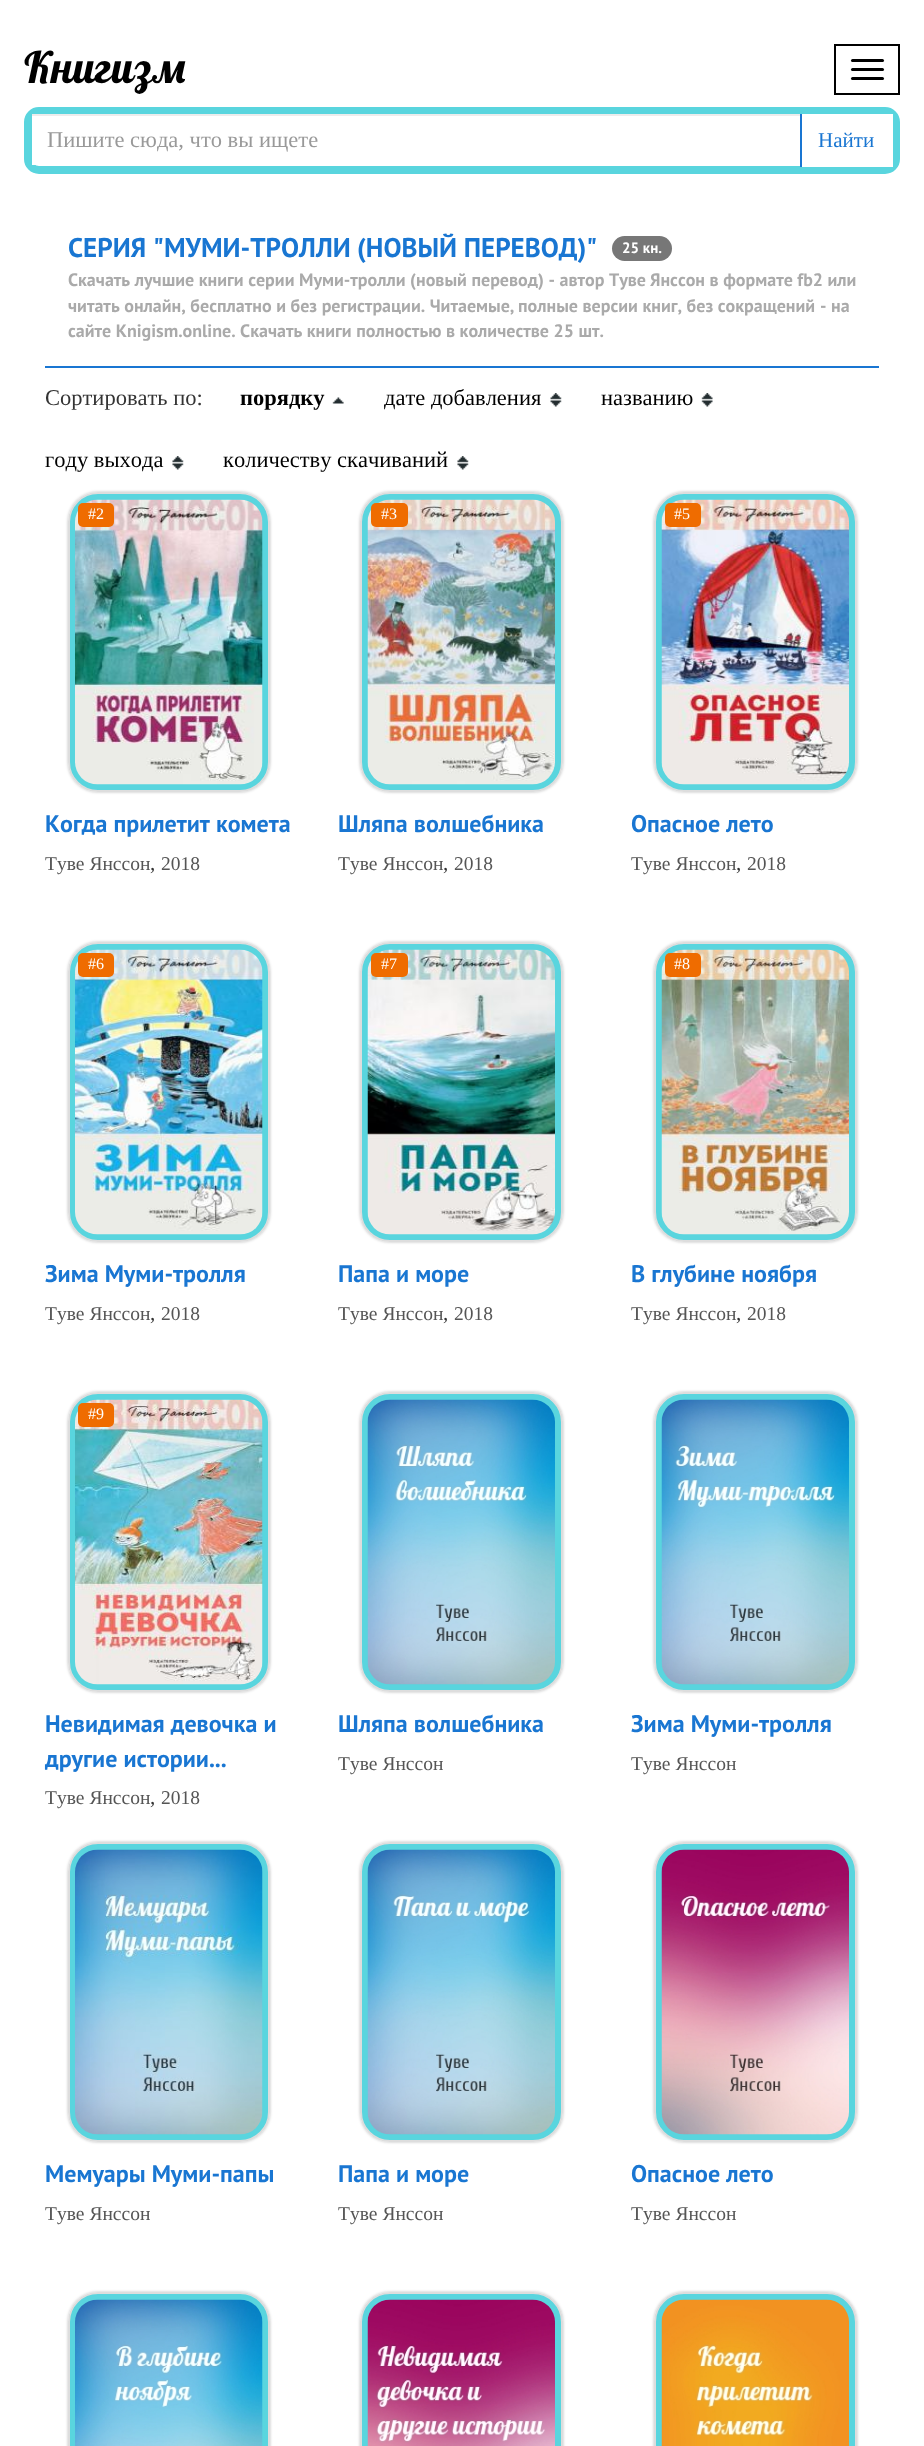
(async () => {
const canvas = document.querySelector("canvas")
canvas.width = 924
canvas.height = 2446
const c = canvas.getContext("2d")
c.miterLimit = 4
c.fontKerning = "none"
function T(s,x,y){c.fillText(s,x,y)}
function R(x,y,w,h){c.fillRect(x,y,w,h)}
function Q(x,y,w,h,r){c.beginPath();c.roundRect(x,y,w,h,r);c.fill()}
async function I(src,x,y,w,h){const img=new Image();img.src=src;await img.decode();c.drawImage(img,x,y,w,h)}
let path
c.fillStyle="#fff"
R(0,0,924,2446)
c.font="43.5px Lobster"
c.fillStyle="#000"
T("Книгизм",24,83)
c.strokeStyle="#000"
c.lineWidth=2
c.strokeRect(835,45,64,49)
Q(851,59,33,3,1.5)
Q(851,68,33,3,1.5)
Q(851,77,33,3,1.5)
c.beginPath()
c.roundRect(28,111,868,59,11)
c.strokeStyle="#59d5de"
c.lineWidth=8
c.stroke()
c.fillStyle="#fff"
R(32,116,4,49)
c.fillStyle="#ececec"
R(32,114,768,2)
c.font="22.5px Liberation Serif"
c.fillStyle="#999"
T("Пишите сюда, что вы ищете",47,147)
c.fillStyle="#fff"
R(802,114,91,53)
c.fillStyle="#1976d2"
R(800,114,2,53)
c.font="21px Liberation Serif"
T("Найти",818,147)
R(45,366,834,2)
c.font="bold 27px PT Sans"
T("СЕРИЯ \"МУМИ-ТРОЛЛИ",68,257)
T("(НОВЫЙ ПЕРЕВОД)\"",357,257)
c.fillStyle="#777"
Q(612,236,60,25,12.5)
c.font="bold 15px PT Sans"
c.fillStyle="#fff"
T("25 кн.",622,253)
c.font="bold 18px PT Sans"
c.fillStyle="#aaa"
T("Скачать лучшие книги серии Муми-тролли (новый перевод) - автор Туве",68,286)
T("Янссон в формате fb2 или",650,286)
T("читать онлайн, бесплатно и без регистрации. Читаемые,",68,312)
T("полные версии книг, без сокращений",518,312)
T("- на",820,312)
T("сайте Knigism.online. Скачать книги полностью в количестве 25 шт.",68,337)
c.font="22.5px Liberation Serif"
c.fillStyle="#333"
T("Сортировать по:",45,405)
c.font="bold 22.5px Liberation Serif"
c.fillStyle="#000"
T("порядку",240,405)
await I("1.png",332,397,12,7)
c.font="22.5px Liberation Serif"
T("дате добавления",384,405)
await I("2.png",550,393,12,14)
T("названию",601,405)
await I("3.png",701,393,12,14)
T("году выхода",45,467)
await I("4.png",172,456,12,14)
T("количеству скачиваний",223,467)
await I("4.png",457,456,12,14)
c.save()
path = new Path2D("M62 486h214v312h-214zm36 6h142c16.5 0 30 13.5 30 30v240c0 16.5-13.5 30-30 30h-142c-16.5 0-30-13.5-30-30v-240c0-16.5 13.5-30 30-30z")
c.clip(path,"evenodd")
c.fillStyle="#00000040"
c.filter="blur(1.5px)"
c.beginPath()
c.roundRect(68,492,202,300,30)
c.fill()
c.filter="none"
c.restore()
c.fillStyle="#59d5de"
c.beginPath()
c.roundRect(69,493,200,298,29)
c.fill()
c.strokeStyle="#ddd"
c.lineWidth=2
c.stroke()
await I("5.png",75,499,188,286)
c.fillStyle="#ef6c00"
Q(78,503,36,24,5)
c.font="16px Liberation Serif"
c.fillStyle="#fff"
T("#2",88,519)
c.font="bold 24px PT Sans"
c.fillStyle="#1976d2"
T("Когда прилетит комета",45,832)
c.font="19.5px Liberation Serif"
c.fillStyle="#555"
T("Туве Янссон",45,870)
c.font="21px Liberation Serif"
c.fillStyle="#333"
T(",",150,870)
c.font="19.5px Liberation Serif"
c.fillStyle="#555"
T("2018",161,870)
c.save()
path = new Path2D("M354 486h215v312h-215zm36 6h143c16.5 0 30 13.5 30 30v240c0 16.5-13.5 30-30 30h-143c-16.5 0-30-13.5-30-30v-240c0-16.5 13.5-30 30-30z")
c.clip(path,"evenodd")
c.fillStyle="#00000040"
c.filter="blur(1.5px)"
c.beginPath()
c.roundRect(360,492,203,300,30)
c.fill()
c.filter="none"
c.restore()
c.fillStyle="#59d5de"
c.beginPath()
c.roundRect(361,493,201,298,29)
c.fill()
c.stroke()
await I("6.png",367,499,188,286)
c.fillStyle="#ef6c00"
Q(371,503,37,24,5)
c.font="16px Liberation Serif"
c.fillStyle="#fff"
T("#3",381,519)
c.font="bold 24px PT Sans"
c.fillStyle="#1976d2"
T("Шляпа волшебника",338,832)
c.font="19.5px Liberation Serif"
c.fillStyle="#555"
T("Туве Янссон",338,870)
c.font="21px Liberation Serif"
c.fillStyle="#333"
T(",",443,870)
c.font="19.5px Liberation Serif"
c.fillStyle="#555"
T("2018",454,870)
c.save()
path = new Path2D("M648 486h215v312h-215zm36 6h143c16.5 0 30 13.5 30 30v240c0 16.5-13.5 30-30 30h-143c-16.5 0-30-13.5-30-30v-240c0-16.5 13.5-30 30-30z")
c.clip(path,"evenodd")
c.fillStyle="#00000040"
c.filter="blur(1.5px)"
c.beginPath()
c.roundRect(654,492,203,300,30)
c.fill()
c.filter="none"
c.restore()
c.fillStyle="#59d5de"
c.beginPath()
c.roundRect(655,493,201,298,29)
c.fill()
c.stroke()
await I("7.png",661,499,188,286)
c.fillStyle="#ef6c00"
Q(665,503,36,24,5)
c.font="16px Liberation Serif"
c.fillStyle="#fff"
T("#5",674,519)
c.font="bold 24px PT Sans"
c.fillStyle="#1976d2"
T("Опасное лето",631,832)
c.font="19.5px Liberation Serif"
c.fillStyle="#555"
T("Туве Янссон",631,870)
c.font="21px Liberation Serif"
c.fillStyle="#333"
T(",",736,870)
c.font="19.5px Liberation Serif"
c.fillStyle="#555"
T("2018",747,870)
c.save()
path = new Path2D("M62 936h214v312h-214zm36 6h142c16.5 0 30 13.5 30 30v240c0 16.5-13.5 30-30 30h-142c-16.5 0-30-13.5-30-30v-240c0-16.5 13.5-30 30-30z")
c.clip(path,"evenodd")
c.fillStyle="#00000040"
c.filter="blur(1.5px)"
c.beginPath()
c.roundRect(68,942,202,300,30)
c.fill()
c.filter="none"
c.restore()
c.fillStyle="#59d5de"
c.beginPath()
c.roundRect(69,943,200,298,29)
c.fill()
c.stroke()
await I("8.png",75,949,188,286)
c.fillStyle="#ef6c00"
Q(78,953,36,24,5)
c.font="16px Liberation Serif"
c.fillStyle="#fff"
T("#6",88,969)
c.font="bold 24px PT Sans"
c.fillStyle="#1976d2"
T("Зима Муми-тролля",45,1282)
c.font="19.5px Liberation Serif"
c.fillStyle="#555"
T("Туве Янссон",45,1320)
c.font="21px Liberation Serif"
c.fillStyle="#333"
T(",",150,1320)
c.font="19.5px Liberation Serif"
c.fillStyle="#555"
T("2018",161,1320)
c.save()
path = new Path2D("M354 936h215v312h-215zm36 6h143c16.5 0 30 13.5 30 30v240c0 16.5-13.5 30-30 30h-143c-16.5 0-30-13.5-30-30v-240c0-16.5 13.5-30 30-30z")
c.clip(path,"evenodd")
c.fillStyle="#00000040"
c.filter="blur(1.5px)"
c.beginPath()
c.roundRect(360,942,203,300,30)
c.fill()
c.filter="none"
c.restore()
c.fillStyle="#59d5de"
c.beginPath()
c.roundRect(361,943,201,298,29)
c.fill()
c.stroke()
await I("9.png",367,949,188,286)
c.fillStyle="#ef6c00"
Q(371,953,37,24,5)
c.font="16px Liberation Serif"
c.fillStyle="#fff"
T("#7",381,969)
c.font="bold 24px PT Sans"
c.fillStyle="#1976d2"
T("Папа и море",338,1282)
c.font="19.5px Liberation Serif"
c.fillStyle="#555"
T("Туве Янссон",338,1320)
c.font="21px Liberation Serif"
c.fillStyle="#333"
T(",",443,1320)
c.font="19.5px Liberation Serif"
c.fillStyle="#555"
T("2018",454,1320)
c.save()
path = new Path2D("M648 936h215v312h-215zm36 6h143c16.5 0 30 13.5 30 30v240c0 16.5-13.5 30-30 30h-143c-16.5 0-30-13.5-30-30v-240c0-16.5 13.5-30 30-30z")
c.clip(path,"evenodd")
c.fillStyle="#00000040"
c.filter="blur(1.5px)"
c.beginPath()
c.roundRect(654,942,203,300,30)
c.fill()
c.filter="none"
c.restore()
c.fillStyle="#59d5de"
c.beginPath()
c.roundRect(655,943,201,298,29)
c.fill()
c.stroke()
await I("10.png",661,949,188,286)
c.fillStyle="#ef6c00"
Q(665,953,36,24,5)
c.font="16px Liberation Serif"
c.fillStyle="#fff"
T("#8",674,969)
c.font="bold 24px PT Sans"
c.fillStyle="#1976d2"
T("В глубине ноября",631,1282)
c.font="19.5px Liberation Serif"
c.fillStyle="#555"
T("Туве Янссон",631,1320)
c.font="21px Liberation Serif"
c.fillStyle="#333"
T(",",736,1320)
c.font="19.5px Liberation Serif"
c.fillStyle="#555"
T("2018",747,1320)
c.save()
path = new Path2D("M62 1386h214v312h-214zm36 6h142c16.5 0 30 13.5 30 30v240c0 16.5-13.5 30-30 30h-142c-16.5 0-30-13.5-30-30v-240c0-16.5 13.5-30 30-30z")
c.clip(path,"evenodd")
c.fillStyle="#00000040"
c.filter="blur(1.5px)"
c.beginPath()
c.roundRect(68,1392,202,300,30)
c.fill()
c.filter="none"
c.restore()
c.fillStyle="#59d5de"
c.beginPath()
c.roundRect(69,1393,200,298,29)
c.fill()
c.stroke()
await I("11.png",75,1399,188,286)
c.fillStyle="#ef6c00"
Q(78,1403,36,24,5)
c.font="16px Liberation Serif"
c.fillStyle="#fff"
T("#9",88,1419)
c.font="bold 24px PT Sans"
c.fillStyle="#1976d2"
T("Невидимая девочка и",45,1732)
T("другие истории...",45,1767)
c.font="19.5px Liberation Serif"
c.fillStyle="#555"
T("Туве Янссон",45,1804)
c.font="21px Liberation Serif"
c.fillStyle="#333"
T(",",150,1804)
c.font="19.5px Liberation Serif"
c.fillStyle="#555"
T("2018",161,1804)
c.save()
path = new Path2D("M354 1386h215v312h-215zm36 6h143c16.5 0 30 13.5 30 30v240c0 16.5-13.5 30-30 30h-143c-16.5 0-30-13.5-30-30v-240c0-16.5 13.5-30 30-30z")
c.clip(path,"evenodd")
c.fillStyle="#00000040"
c.filter="blur(1.5px)"
c.beginPath()
c.roundRect(360,1392,203,300,30)
c.fill()
c.filter="none"
c.restore()
c.fillStyle="#59d5de"
c.beginPath()
c.roundRect(361,1393,201,298,29)
c.fill()
c.stroke()
await I("12.png",367,1399,188,286)
c.font="bold 24px PT Sans"
c.fillStyle="#1976d2"
T("Шляпа волшебника",338,1732)
c.font="19.5px Liberation Serif"
c.fillStyle="#555"
T("Туве Янссон",338,1770)
c.save()
path = new Path2D("M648 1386h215v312h-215zm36 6h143c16.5 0 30 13.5 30 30v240c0 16.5-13.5 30-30 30h-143c-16.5 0-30-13.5-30-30v-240c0-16.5 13.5-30 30-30z")
c.clip(path,"evenodd")
c.fillStyle="#00000040"
c.filter="blur(1.5px)"
c.beginPath()
c.roundRect(654,1392,203,300,30)
c.fill()
c.filter="none"
c.restore()
c.fillStyle="#59d5de"
c.beginPath()
c.roundRect(655,1393,201,298,29)
c.fill()
c.stroke()
await I("13.png",661,1399,188,286)
c.font="bold 24px PT Sans"
c.fillStyle="#1976d2"
T("Зима Муми-тролля",631,1732)
c.font="19.5px Liberation Serif"
c.fillStyle="#555"
T("Туве Янссон",631,1770)
c.save()
path = new Path2D("M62 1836h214v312h-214zm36 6h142c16.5 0 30 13.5 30 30v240c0 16.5-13.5 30-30 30h-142c-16.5 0-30-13.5-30-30v-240c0-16.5 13.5-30 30-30z")
c.clip(path,"evenodd")
c.fillStyle="#00000040"
c.filter="blur(1.5px)"
c.beginPath()
c.roundRect(68,1842,202,300,30)
c.fill()
c.filter="none"
c.restore()
c.fillStyle="#59d5de"
c.beginPath()
c.roundRect(69,1843,200,298,29)
c.fill()
c.stroke()
await I("14.png",75,1849,188,286)
c.font="bold 24px PT Sans"
c.fillStyle="#1976d2"
T("Мемуары Муми-папы",45,2182)
c.font="19.5px Liberation Serif"
c.fillStyle="#555"
T("Туве Янссон",45,2220)
c.save()
path = new Path2D("M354 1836h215v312h-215zm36 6h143c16.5 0 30 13.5 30 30v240c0 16.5-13.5 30-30 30h-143c-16.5 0-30-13.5-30-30v-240c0-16.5 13.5-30 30-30z")
c.clip(path,"evenodd")
c.fillStyle="#00000040"
c.filter="blur(1.5px)"
c.beginPath()
c.roundRect(360,1842,203,300,30)
c.fill()
c.filter="none"
c.restore()
c.fillStyle="#59d5de"
c.beginPath()
c.roundRect(361,1843,201,298,29)
c.fill()
c.stroke()
await I("15.png",367,1849,188,286)
c.font="bold 24px PT Sans"
c.fillStyle="#1976d2"
T("Папа и море",338,2182)
c.font="19.5px Liberation Serif"
c.fillStyle="#555"
T("Туве Янссон",338,2220)
c.save()
path = new Path2D("M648 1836h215v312h-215zm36 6h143c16.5 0 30 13.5 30 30v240c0 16.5-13.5 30-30 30h-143c-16.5 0-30-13.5-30-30v-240c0-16.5 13.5-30 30-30z")
c.clip(path,"evenodd")
c.fillStyle="#00000040"
c.filter="blur(1.5px)"
c.beginPath()
c.roundRect(654,1842,203,300,30)
c.fill()
c.filter="none"
c.restore()
c.fillStyle="#59d5de"
c.beginPath()
c.roundRect(655,1843,201,298,29)
c.fill()
c.stroke()
await I("16.png",661,1849,188,286)
c.font="bold 24px PT Sans"
c.fillStyle="#1976d2"
T("Опасное лето",631,2182)
c.font="19.5px Liberation Serif"
c.fillStyle="#555"
T("Туве Янссон",631,2220)
c.save()
path = new Path2D("M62 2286h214v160h-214zm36 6h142c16.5 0 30 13.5 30 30v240c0 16.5-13.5 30-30 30h-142c-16.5 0-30-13.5-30-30v-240c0-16.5 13.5-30 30-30z")
c.clip(path,"evenodd")
c.fillStyle="#00000040"
c.filter="blur(1.5px)"
c.beginPath()
c.roundRect(68,2292,202,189,30)
c.fill()
c.filter="none"
c.restore()
c.fillStyle="#59d5de"
c.beginPath()
c.roundRect(69,2293,200,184,29)
c.fill()
c.stroke()
await I("17.png",75,2299,188,147)
c.save()
path = new Path2D("M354 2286h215v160h-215zm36 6h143c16.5 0 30 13.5 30 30v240c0 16.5-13.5 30-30 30h-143c-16.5 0-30-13.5-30-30v-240c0-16.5 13.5-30 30-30z")
c.clip(path,"evenodd")
c.fillStyle="#00000040"
c.filter="blur(1.5px)"
c.beginPath()
c.roundRect(360,2292,203,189,30)
c.fill()
c.filter="none"
c.restore()
c.beginPath()
c.roundRect(361,2293,201,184,29)
c.fill()
c.stroke()
await I("18.png",367,2299,188,147)
c.save()
path = new Path2D("M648 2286h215v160h-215zm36 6h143c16.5 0 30 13.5 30 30v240c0 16.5-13.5 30-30 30h-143c-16.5 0-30-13.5-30-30v-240c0-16.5 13.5-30 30-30z")
c.clip(path,"evenodd")
c.fillStyle="#00000040"
c.filter="blur(1.5px)"
c.beginPath()
c.roundRect(654,2292,203,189,30)
c.fill()
c.filter="none"
c.restore()
c.beginPath()
c.roundRect(655,2293,201,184,29)
c.fill()
c.stroke()
await I("19.png",661,2299,188,147)
})()
